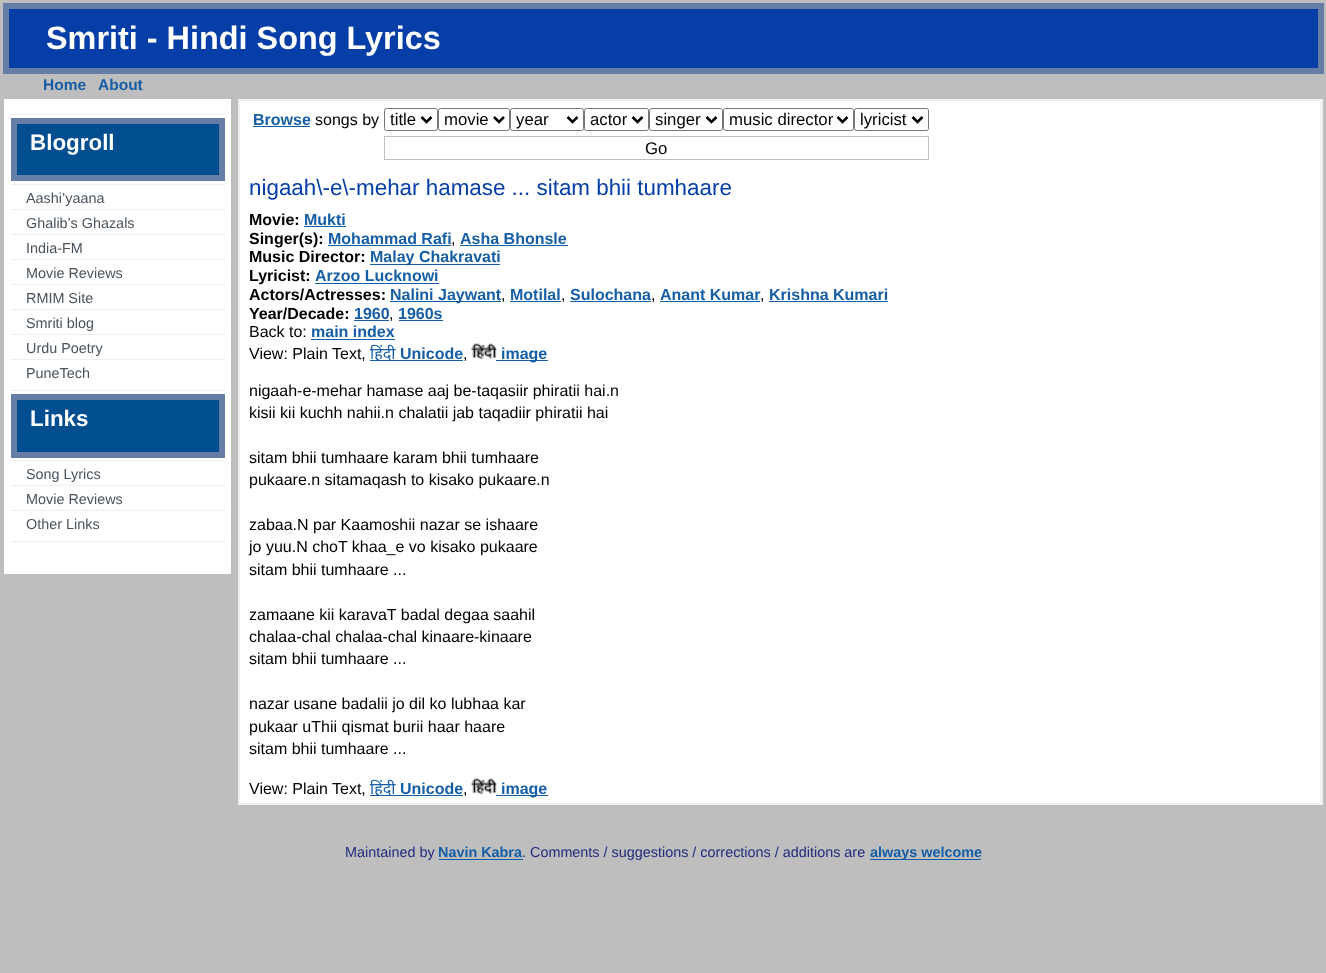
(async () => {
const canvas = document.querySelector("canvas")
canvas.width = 1326
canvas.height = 973
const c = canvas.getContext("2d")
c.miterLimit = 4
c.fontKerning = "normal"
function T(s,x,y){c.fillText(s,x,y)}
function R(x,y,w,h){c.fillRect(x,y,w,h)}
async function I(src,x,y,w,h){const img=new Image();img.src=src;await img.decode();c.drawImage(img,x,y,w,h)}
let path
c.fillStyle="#bebebe"
R(0,0,1326,973)
c.fillStyle="#053ea6"
c.beginPath()
c.rect(6,6,1315,65)
c.fill()
c.strokeStyle="#667da6"
c.lineWidth=6
c.stroke()
c.font="bold 32.4px Liberation Sans"
c.fillStyle="#fff"
T("Smriti - Hindi Song Lyrics",46,49)
c.font="bold 15.5px Liberation Sans"
c.fillStyle="#155ea5"
T("Home",43,90)
T("About",98,90)
c.fillStyle="#fff"
R(4,99,227,475)
c.fillStyle="#efefef"
R(11,114,214,1)
R(11,390,214,1)
c.fillStyle="#004d90"
c.beginPath()
c.rect(14,121,208,57)
c.fill()
c.stroke()
c.font="bold 22.4px Liberation Sans"
c.fillStyle="#fff"
T("Blogroll",30,150)
c.fillStyle="#efefef"
R(11,184,214,1)
c.font="14.4px Liberation Sans"
c.fillStyle="#4a535d"
T("Aashi’yaana",26,203)
c.fillStyle="#efefef"
R(11,209,214,1)
c.fillStyle="#4a535d"
T("Ghalib’s Ghazals",26,228)
c.fillStyle="#efefef"
R(11,234,214,1)
c.fillStyle="#4a535d"
T("India-FM",26,253)
c.fillStyle="#efefef"
R(11,259,214,1)
c.fillStyle="#4a535d"
T("Movie Reviews",26,278)
c.fillStyle="#efefef"
R(11,284,214,1)
c.fillStyle="#4a535d"
T("RMIM Site",26,303)
c.fillStyle="#efefef"
R(11,309,214,1)
c.fillStyle="#4a535d"
T("Smriti blog",26,328)
c.fillStyle="#efefef"
R(11,334,214,1)
c.fillStyle="#4a535d"
T("Urdu Poetry",26,353)
c.fillStyle="#efefef"
R(11,359,214,1)
c.fillStyle="#4a535d"
T("PuneTech",26,378)
c.fillStyle="#efefef"
R(11,541,214,1)
c.fillStyle="#004d90"
c.beginPath()
c.rect(14,397,208,58)
c.fill()
c.stroke()
c.font="bold 22.4px Liberation Sans"
c.fillStyle="#fff"
T("Links",30,426)
c.fillStyle="#efefef"
R(11,460,214,1)
c.font="14.4px Liberation Sans"
c.fillStyle="#4a535d"
T("Song Lyrics",26,479)
c.fillStyle="#efefef"
R(11,485,214,1)
c.fillStyle="#4a535d"
T("Movie Reviews",26,504)
c.fillStyle="#efefef"
R(11,510,214,1)
c.fillStyle="#4a535d"
T("Other Links",26,529)
c.fillStyle="#efefef"
R(238,99,1085,706)
c.fillStyle="#fff"
R(240,101,1080,702)
c.font="bold 16px Liberation Sans"
c.fillStyle="#155ea5"
T("Browse",253,125)
R(253,126,57,1)
c.font="16px Liberation Sans"
c.fillStyle="#000"
T("songs by",315,125)
c.beginPath()
c.roundRect(384.5,108.5,53,22,2)
c.strokeStyle="#767676"
c.lineWidth=1
c.stroke()
path = new Path2D("M421.5 117l5 5l5-5")
c.strokeStyle="#000"
c.lineWidth=2.5
c.stroke(path)
c.font="16.75px Liberation Sans"
T("title",390,125)
c.beginPath()
c.roundRect(438.5,108.5,71,22,2)
c.strokeStyle="#767676"
c.lineWidth=1
c.stroke()
path = new Path2D("M494 117l5 5l5-5")
c.strokeStyle="#000"
c.lineWidth=2.5
c.stroke(path)
T("movie",444,125)
c.beginPath()
c.roundRect(510.5,108.5,73,22,2)
c.strokeStyle="#767676"
c.lineWidth=1
c.stroke()
path = new Path2D("M567.5 117l5 5l5-5")
c.strokeStyle="#000"
c.lineWidth=2.5
c.stroke(path)
T("year",516,125)
c.beginPath()
c.roundRect(584.5,108.5,64,22,2)
c.strokeStyle="#767676"
c.lineWidth=1
c.stroke()
path = new Path2D("M632.5 117l5 5l5-5")
c.strokeStyle="#000"
c.lineWidth=2.5
c.stroke(path)
T("actor",590,125)
c.beginPath()
c.roundRect(649.5,108.5,73,22,2)
c.strokeStyle="#767676"
c.lineWidth=1
c.stroke()
path = new Path2D("M706.5 117l5 5l5-5")
c.strokeStyle="#000"
c.lineWidth=2.5
c.stroke(path)
T("singer",655,125)
c.beginPath()
c.roundRect(723.5,108.5,130,22,2)
c.strokeStyle="#767676"
c.lineWidth=1
c.stroke()
path = new Path2D("M837.5 117l5 5l5-5")
c.strokeStyle="#000"
c.lineWidth=2.5
c.stroke(path)
T("music director",729,125)
c.beginPath()
c.roundRect(854.5,108.5,74,22,2)
c.strokeStyle="#767676"
c.lineWidth=1
c.stroke()
path = new Path2D("M912.5 117l5 5l5-5")
c.strokeStyle="#000"
c.lineWidth=2.5
c.stroke(path)
T("lyricist",860,125)
c.strokeStyle="#bfbfbf"
c.lineWidth=1
c.strokeRect(384.5,136.5,544,23)
T("Go",645,154)
c.font="22.4px Liberation Sans"
c.fillStyle="#053ea6"
T("nigaah\\-e\\-mehar hamase ... sitam bhii tumhaare",249,195)
c.font="bold 16px Liberation Sans"
c.fillStyle="#000"
T("Movie:",249,225)
c.fillStyle="#155ea5"
T("Mukti",304,225)
R(304,226,42,1)
c.fillStyle="#000"
T("Singer(s):",249,244)
c.fillStyle="#155ea5"
T("Mohammad Rafi",328,244)
R(328,245,123,1)
c.font="16px Liberation Sans"
c.fillStyle="#000"
T(",",451,244)
c.font="bold 16px Liberation Sans"
c.fillStyle="#155ea5"
T("Asha Bhonsle",460,244)
R(460,245,108,1)
c.fillStyle="#000"
T("Music Director:",249,262)
c.fillStyle="#155ea5"
R(370,264,130,1)
T("Malay Chakravati",370,262)
c.fillStyle="#000"
T("Lyricist:",249,281)
c.fillStyle="#155ea5"
T("Arzoo Lucknowi",315,281)
R(315,283,124,1)
c.fillStyle="#000"
T("Actors/Actresses:",249,300)
c.fillStyle="#155ea5"
R(390,301,111,1)
T("Nalini Jaywant",390,300)
c.font="16px Liberation Sans"
c.fillStyle="#000"
T(",",501,300)
c.font="bold 16px Liberation Sans"
c.fillStyle="#155ea5"
T("Motilal",510,300)
R(510,301,51,1)
c.font="16px Liberation Sans"
c.fillStyle="#000"
T(",",561,300)
c.font="bold 16px Liberation Sans"
c.fillStyle="#155ea5"
T("Sulochana",570,300)
R(570,301,81,1)
c.font="16px Liberation Sans"
c.fillStyle="#000"
T(",",651,300)
c.font="bold 16px Liberation Sans"
c.fillStyle="#155ea5"
T("Anant Kumar",660,300)
R(660,301,100,1)
c.font="16px Liberation Sans"
c.fillStyle="#000"
T(",",760,300)
c.font="bold 16px Liberation Sans"
c.fillStyle="#155ea5"
T("Krishna Kumari",769,300)
R(769,301,119,1)
c.fillStyle="#000"
T("Year/Decade:",249,319)
c.fillStyle="#155ea5"
T("1960",354,319)
R(354,320,35,1)
c.font="16px Liberation Sans"
c.fillStyle="#000"
T(",",389,319)
c.font="bold 16px Liberation Sans"
c.fillStyle="#155ea5"
T("1960s",398,319)
R(399,320,44,1)
c.font="16px Liberation Sans"
c.fillStyle="#000"
T("Back to:",249,337)
c.font="bold 16px Liberation Sans"
c.fillStyle="#155ea5"
T("main index",311,337)
R(311,339,84,1)
c.font="16px Liberation Sans"
c.fillStyle="#000"
T("View: Plain Text,",249,359)
c.fillStyle="#155ea5"
R(370,360,93,1)
c.font="16px Noto Sans"
T("हिंदी",370,359)
c.font="bold 16px Liberation Sans"
T("Unicode",400,359)
c.font="16px Liberation Sans"
c.fillStyle="#000"
T(",",463,359)
await I("1.png",471,343,26,16)
c.fillStyle="#155ea5"
R(496,360,52,1)
c.font="bold 16px Liberation Sans"
T("image",501,359)
c.font="16px Liberation Sans"
c.fillStyle="#000"
T("nigaah-e-mehar hamase aaj be-taqasiir phiratii hai.n",249,396)
T("kisii kii kuchh nahii.n chalatii jab taqadiir phiratii hai",249,418)
T("sitam bhii tumhaare karam bhii tumhaare",249,463)
T("pukaare.n sitamaqash to kisako pukaare.n",249,485)
T("zabaa.N par Kaamoshii nazar se ishaare",249,530)
T("jo yuu.N choT khaa_e vo kisako pukaare",249,552)
T("sitam bhii tumhaare ...",249,575)
T("zamaane kii karavaT badal degaa saahil",249,620)
T("chalaa-chal chalaa-chal kinaare-kinaare",249,642)
T("sitam bhii tumhaare ...",249,664)
T("nazar usane badalii jo dil ko lubhaa kar",249,709)
T("pukaar uThii qismat burii haar haare",249,732)
T("sitam bhii tumhaare ...",249,754)
T("View: Plain Text,",249,794)
c.fillStyle="#155ea5"
R(370,795,93,1)
c.font="16px Noto Sans"
T("हिंदी",370,794)
c.font="bold 16px Liberation Sans"
T("Unicode",400,794)
c.font="16px Liberation Sans"
c.fillStyle="#000"
T(",",463,794)
await I("2.png",471,778,26,16)
c.fillStyle="#155ea5"
R(496,795,52,1)
c.font="bold 16px Liberation Sans"
T("image",501,794)
c.font="14.4px Liberation Sans"
c.fillStyle="#202b7c"
T("Maintained by",345,857)
c.font="bold 14.4px Liberation Sans"
c.fillStyle="#155ea5"
T("Navin Kabra",438,857)
R(439,859,84,1)
c.font="14.4px Liberation Sans"
c.fillStyle="#202b7c"
T(". Comments / suggestions / corrections / additions are",522,857)
c.fillStyle="#155ea5"
R(870,859,111,1)
c.font="bold 14.4px Liberation Sans"
T("always welcome",870,857)
})()
